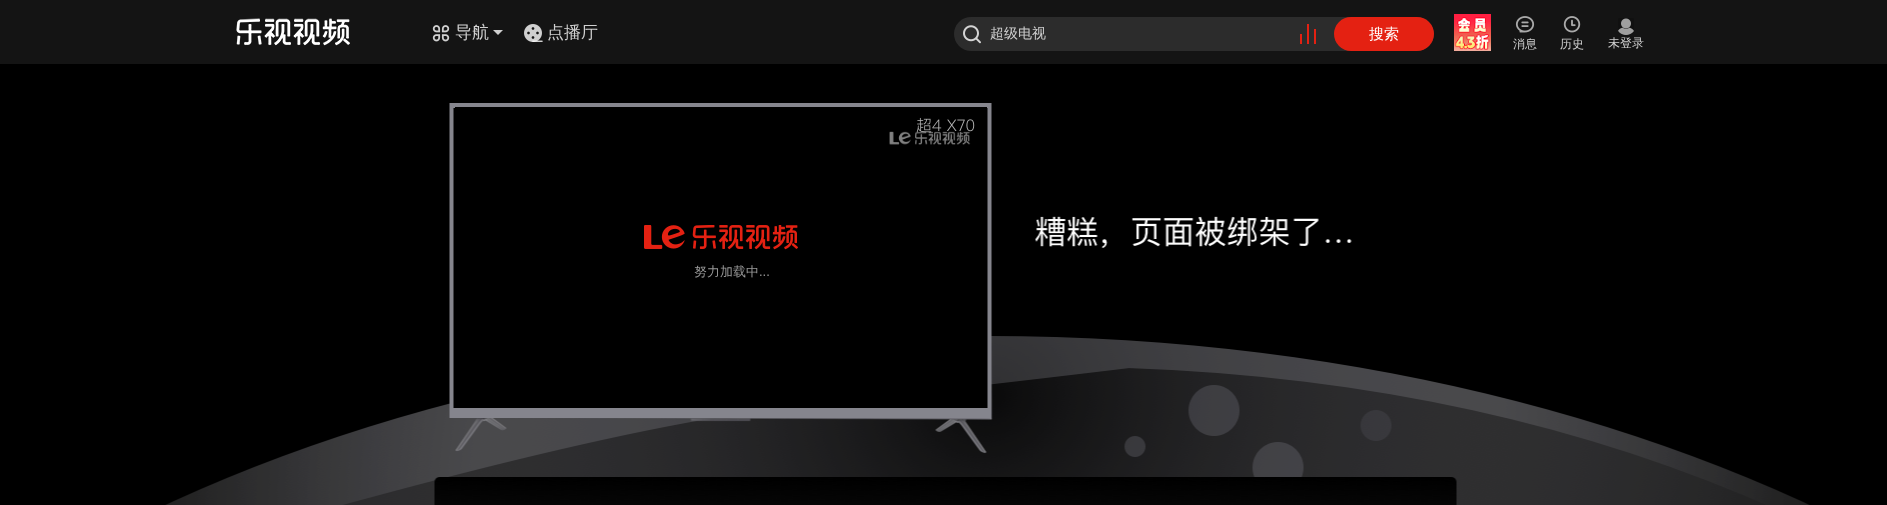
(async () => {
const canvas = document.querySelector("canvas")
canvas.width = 1887
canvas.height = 505
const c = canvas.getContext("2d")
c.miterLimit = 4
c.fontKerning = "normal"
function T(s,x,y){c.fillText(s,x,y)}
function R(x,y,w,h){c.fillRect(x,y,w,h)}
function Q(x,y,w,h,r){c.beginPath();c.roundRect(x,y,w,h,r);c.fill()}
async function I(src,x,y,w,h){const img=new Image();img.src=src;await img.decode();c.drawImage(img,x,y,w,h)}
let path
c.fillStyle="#141414"
R(0,0,1887,505)
await I("1.png",236,18,114,28)
await I("2.png",432,25,18,17)
c.font="500 17px WenQuanYi Zen Hei"
c.fillStyle="#d0d0d0"
T("导航",455,38)
path = new Path2D("M493 30h10l-5 5z")
c.fill(path)
await I("3.png",524,24,19,18)
T("点播厅",547,38)
c.fillStyle="#2c2c2c"
Q(954,17,480,34,17)
await I("4.png",963,25,18,19)
c.font="500 14px WenQuanYi Zen Hei"
c.fillStyle="#d0d0d0"
T("超级电视",990,38)
c.fillStyle="#e42112"
R(1300,34,2,10)
R(1307,24,2,20)
R(1314,29,2,15)
Q(1334,17,100,34,17)
c.font="500 15px WenQuanYi Zen Hei"
c.fillStyle="#fff"
T("搜索",1369,39)
await I("5.png",1454,14,37,37)
await I("6.png",1515,16,20,17)
c.font="500 12px WenQuanYi Zen Hei"
c.fillStyle="#d0d0d0"
T("消息",1513,48)
await I("7.png",1563,16,18,17)
T("历史",1560,48)
await I("8.png",1618,18,16,17)
T("未登录",1608,47)
await I("9.png",0,64,1887,441)
await I("11.png",889,131,82,14)
await I("10.png",916,117,59,21)
c.fillStyle="#000"
R(455,107,532,1)
await I("12.png",644,225,154,25)
c.font="500 13px WenQuanYi Zen Hei"
c.fillStyle="#999"
T("努力加载中",694,276)
c.font="13px Liberation Sans"
T("...",759,276)
})()
